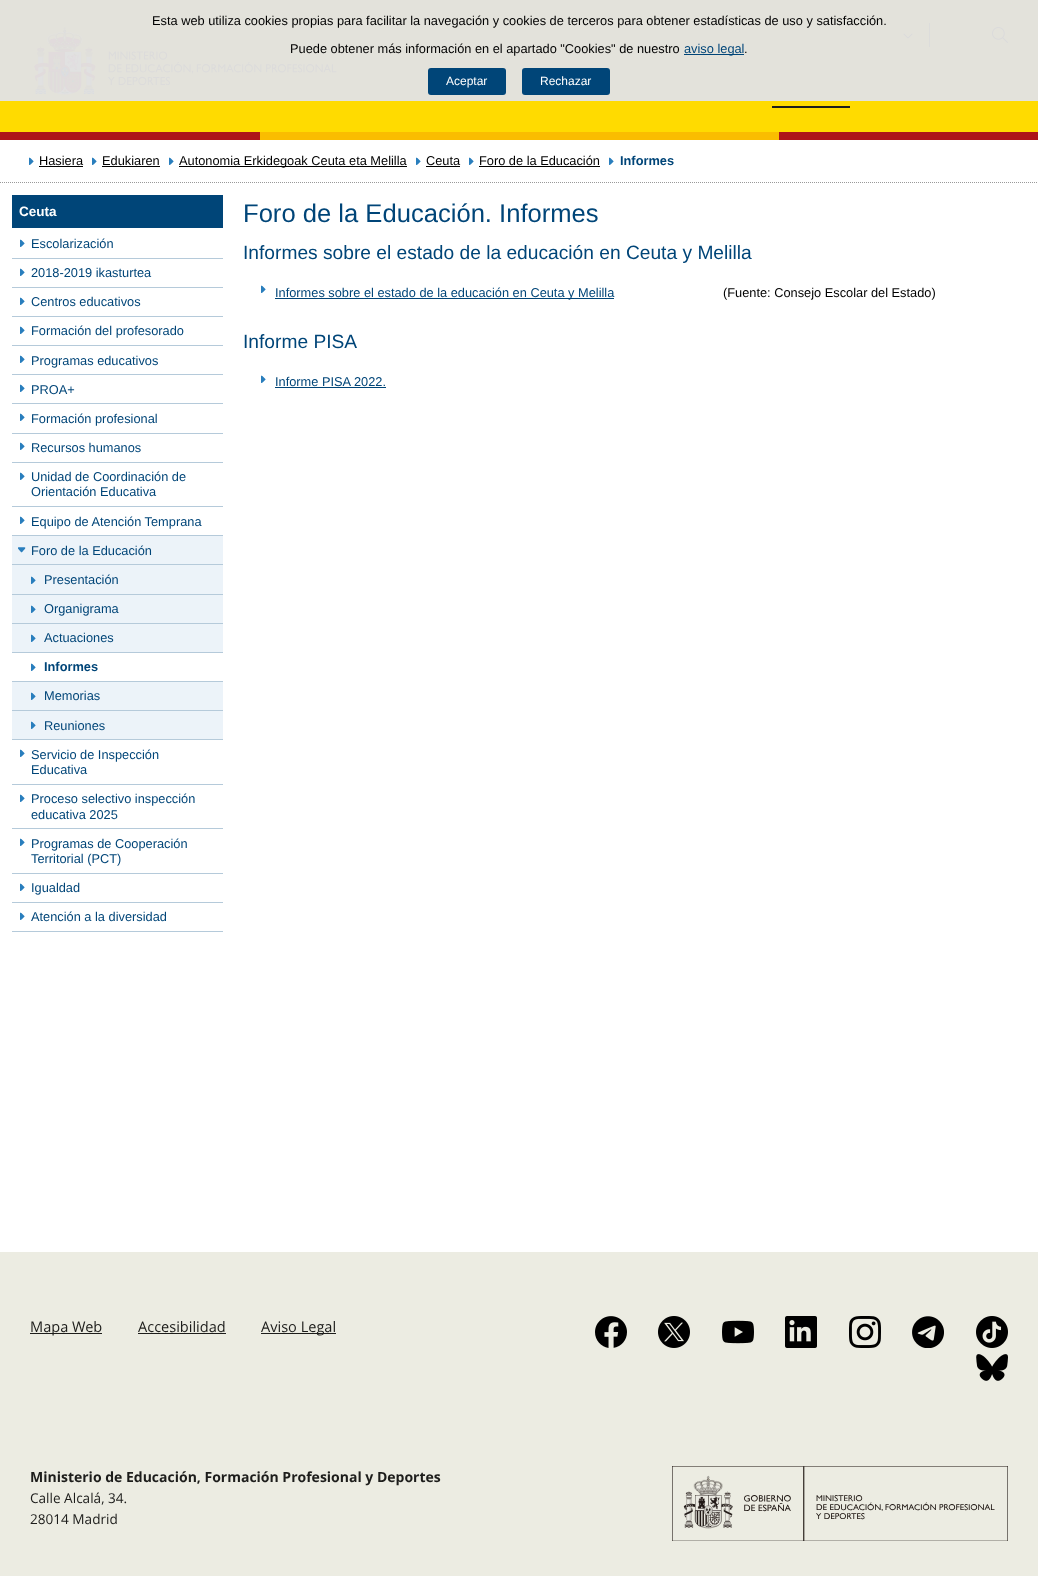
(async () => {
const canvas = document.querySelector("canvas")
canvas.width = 1038
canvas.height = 1576
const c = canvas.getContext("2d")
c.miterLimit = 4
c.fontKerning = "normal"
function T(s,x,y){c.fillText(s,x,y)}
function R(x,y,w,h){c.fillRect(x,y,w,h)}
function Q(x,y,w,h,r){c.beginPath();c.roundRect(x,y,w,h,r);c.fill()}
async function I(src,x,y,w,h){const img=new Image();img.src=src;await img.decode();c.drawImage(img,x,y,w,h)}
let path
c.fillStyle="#fff"
R(0,0,1038,1576)
c.fillStyle="#ffdb00"
R(0,0,1038,132)
await I("1.png",34,27,303,68)
await I("2.png",903,33,10,6)
c.fillStyle="#1d1d1b"
R(929,23,1,24)
await I("3.png",992,27,16,16)
c.fillStyle="#e2e2e2f7"
R(0,0,1038,101)
c.font="12.8px Liberation Sans"
c.fillStyle="#000"
T("Esta web utiliza cookies propias para facilitar la navegación y cookies de terceros para obtener estadísticas de uso y satisfacción.",152,25)
T("Puede obtener más información en el apartado \"Cookies\" de nuestro",290,53)
c.fillStyle="#004578"
R(684,54,60,1)
T("aviso legal",684,53)
c.fillStyle="#000"
T(".",744,53)
c.fillStyle="#004578"
Q(428,68,78,27,3)
c.font="12px Liberation Sans"
c.fillStyle="#fff"
T("Aceptar",446,85)
c.fillStyle="#004578"
Q(522,68,88,27,3)
c.fillStyle="#fff"
T("Rechazar",540,85)
c.fillStyle="#1d1d1d"
R(772,106,78,2)
c.fillStyle="#ad1519"
R(0,132,260,8)
c.fillStyle="#fabd00"
R(260,132,519,8)
c.fillStyle="#ad1519"
R(779,132,259,8)
path = new Path2D("M0 182.5h1038")
c.strokeStyle="#999"
c.setLineDash([1,1])
c.stroke(path)
await I("4.png",29,157,5,8)
c.font="12.8px Liberation Sans"
c.fillStyle="#000"
T("Hasiera",39,165)
R(39,166,44,1)
await I("4.png",92,157,5,8)
T("Edukiaren",102,165)
R(102,166,58,1)
await I("4.png",169,157,5,8)
R(179,166,228,1)
T("Autonomia Erkidegoak Ceuta eta Melilla",179,165)
await I("4.png",416,157,5,8)
T("Ceuta",426,165)
R(426,166,34,1)
await I("4.png",469,157,5,8)
T("Foro de la Educación",479,165)
R(479,166,121,1)
await I("4.png",609,157,5,8)
c.font="bold 12.8px Liberation Sans"
c.fillStyle="#004578"
T("Informes",620,165)
R(12,195,211,33)
c.font="bold 13.5px Liberation Sans"
c.fillStyle="#fff"
T("Ceuta",19,216)
await I("4.png",20,239,5,8)
c.fillStyle="#b5cada"
R(12,258,211,1)
c.font="12.8px Liberation Sans"
c.fillStyle="#004578"
T("Escolarización",31,248)
await I("4.png",20,268,5,8)
c.fillStyle="#b5cada"
R(12,287,211,1)
c.fillStyle="#004578"
T("2018-2019 ikasturtea",31,277)
await I("4.png",20,297,5,8)
c.fillStyle="#b5cada"
R(12,316,211,1)
c.fillStyle="#004578"
T("Centros educativos",31,306)
await I("4.png",20,326,5,8)
c.fillStyle="#b5cada"
R(12,345,211,1)
c.fillStyle="#004578"
T("Formación del profesorado",31,335)
await I("4.png",20,355,5,8)
c.fillStyle="#b5cada"
R(12,374,211,1)
c.fillStyle="#004578"
T("Programas educativos",31,365)
await I("4.png",20,384,5,8)
c.fillStyle="#b5cada"
R(12,403,211,1)
c.fillStyle="#004578"
T("PROA+",31,394)
await I("4.png",20,413,5,8)
c.fillStyle="#b5cada"
R(12,433,211,1)
c.fillStyle="#004578"
T("Formación profesional",31,423)
await I("4.png",20,442,5,8)
c.fillStyle="#b5cada"
R(12,462,211,1)
c.fillStyle="#004578"
T("Recursos humanos",31,452)
await I("4.png",20,472,5,8)
c.fillStyle="#b5cada"
R(12,506,211,1)
c.fillStyle="#004578"
T("Unidad de Coordinación de",31,481)
T("Orientación Educativa",31,496)
await I("4.png",20,516,5,8)
c.fillStyle="#b5cada"
R(12,535,211,1)
c.fillStyle="#004578"
T("Equipo de Atención Temprana",31,526)
c.fillStyle="#ecf3f9"
R(12,536,211,203)
await I("5.png",18,547,8,6)
c.fillStyle="#b5cada"
R(12,564,211,1)
c.fillStyle="#004578"
T("Foro de la Educación",31,555)
await I("6.png",31,576,5,8)
c.fillStyle="#b5cada"
R(12,594,211,1)
c.fillStyle="#004578"
T("Presentación",44,584)
await I("6.png",31,605,5,8)
c.fillStyle="#b5cada"
R(12,623,211,1)
c.fillStyle="#004578"
T("Organigrama",44,613)
await I("6.png",31,634,5,8)
c.fillStyle="#b5cada"
R(12,652,211,1)
c.fillStyle="#004578"
T("Actuaciones",44,642)
c.fillStyle="#fff"
R(12,653,211,28)
await I("4.png",31,663,5,8)
c.fillStyle="#b5cada"
R(12,681,211,1)
c.font="bold 12.8px Liberation Sans"
c.fillStyle="#004578"
T("Informes",44,671)
await I("6.png",31,692,5,8)
c.fillStyle="#b5cada"
R(12,710,211,1)
c.font="12.8px Liberation Sans"
c.fillStyle="#004578"
T("Memorias",44,700)
await I("6.png",31,721,5,8)
c.fillStyle="#b5cada"
R(12,739,211,1)
c.fillStyle="#004578"
T("Reuniones",44,730)
await I("4.png",20,749,5,8)
c.fillStyle="#b5cada"
R(12,784,211,1)
c.fillStyle="#004578"
T("Servicio de Inspección",31,759)
T("Educativa",31,774)
await I("4.png",20,794,5,8)
c.fillStyle="#b5cada"
R(12,828,211,1)
c.fillStyle="#004578"
T("Proceso selectivo inspección",31,803)
T("educativa 2025",31,819)
await I("4.png",20,838,5,8)
c.fillStyle="#b5cada"
R(12,873,211,1)
c.fillStyle="#004578"
T("Programas de Cooperación",31,848)
T("Territorial (PCT)",31,863)
await I("4.png",20,883,5,8)
c.fillStyle="#b5cada"
R(12,902,211,1)
c.fillStyle="#004578"
T("Igualdad",31,892)
await I("4.png",20,912,5,8)
c.fillStyle="#b5cada"
R(12,931,211,1)
c.fillStyle="#004578"
T("Atención a la diversidad",31,921)
c.font="25.6px Liberation Sans"
T("Foro de la Educación. Informes",243,222)
c.font="19.2px Liberation Sans"
T("Informes sobre el estado de la educación en Ceuta y Melilla",243,259)
await I("4.png",261,285,5,8)
R(275,298,339,1)
c.font="12.8px Liberation Sans"
T("Informes sobre el estado de la educación en Ceuta y Melilla",275,297)
c.fillStyle="#000"
T("(Fuente: Consejo Escolar del Estado)",723,297)
c.font="19.2px Liberation Sans"
c.fillStyle="#004578"
T("Informe PISA",243,348)
await I("4.png",261,375,5,8)
c.font="12.8px Liberation Sans"
T("Informe PISA 2022.",275,386)
R(275,387,111,1)
c.fillStyle="#ecece2"
R(0,1252,1038,324)
c.fillStyle="#1d1d1b"
R(30,1333,72,1)
c.font="15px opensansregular"
T("Mapa Web",30,1332)
T("Accesibilidad",138,1332)
R(138,1333,88,1)
R(261,1333,75,1)
T("Aviso Legal",261,1332)
await I("7.png",595,1316,32,32)
await I("8.png",658,1316,32,32)
await I("9.png",722,1320,32,24)
await I("10.png",785,1316,32,32)
await I("11.png",849,1316,32,32)
await I("12.png",912,1316,32,32)
await I("13.png",976,1316,32,32)
await I("14.png",976,1354,32,27)
c.font="bold 14px Open Sans"
T("Ministerio de Educación, Formación Profesional y Deportes",30,1482)
c.font="14px opensansregular"
T("Calle Alcalá, 34.",30,1503)
T("28014 Madrid",30,1524)
await I("15.png",672,1466,336,75)
})()
